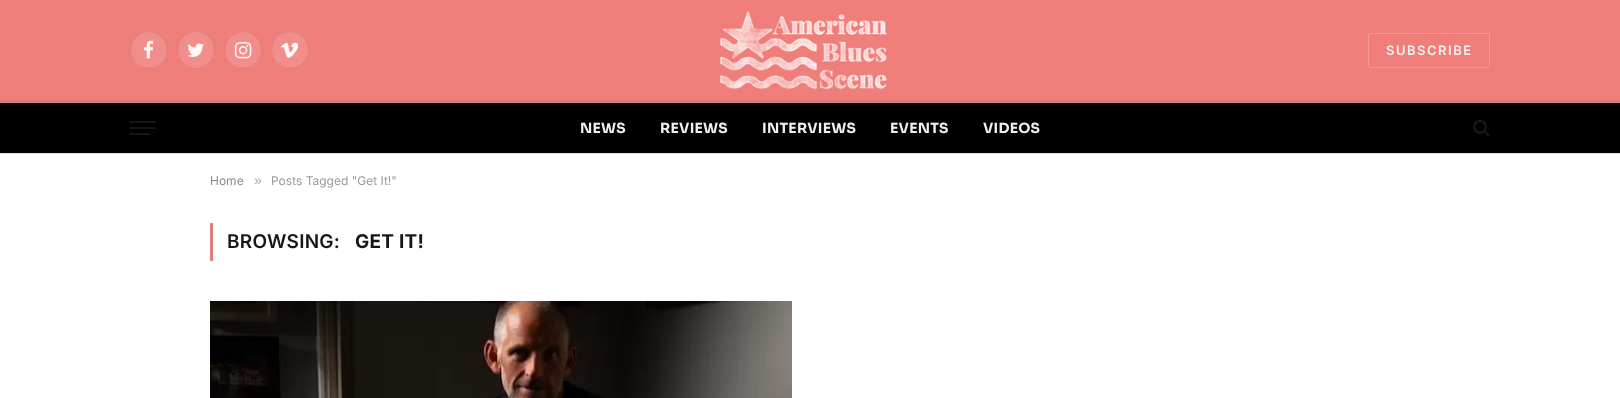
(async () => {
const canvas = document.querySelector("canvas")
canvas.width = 1620
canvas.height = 398
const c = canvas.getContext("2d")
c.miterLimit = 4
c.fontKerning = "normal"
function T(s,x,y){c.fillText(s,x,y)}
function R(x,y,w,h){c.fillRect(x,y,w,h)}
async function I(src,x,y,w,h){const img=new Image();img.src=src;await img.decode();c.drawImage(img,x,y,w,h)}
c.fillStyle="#fff"
R(0,0,1620,398)
c.fillStyle="#ef7e7a"
R(0,0,1620,100)
c.fillStyle="#f18d8a"
c.beginPath()
c.arc(149,50,19,0,7)
c.fill()
c.beginPath()
c.arc(149,50,18.5,0,7)
c.strokeStyle="#00000017"
c.stroke()
await I("1.png",144,40,10,19)
c.beginPath()
c.arc(196,50,19,0,7)
c.fill()
c.beginPath()
c.arc(196,50,18.5,0,7)
c.stroke()
await I("2.png",187,43,17,14)
c.beginPath()
c.arc(243,50,19,0,7)
c.fill()
c.beginPath()
c.arc(243,50,18.5,0,7)
c.stroke()
await I("3.png",235,42,17,17)
c.beginPath()
c.arc(290,50,19,0,7)
c.fill()
c.beginPath()
c.arc(290,50,18.5,0,7)
c.stroke()
await I("4.png",281,42,18,16)
await I("5.png",720,11,168,78)
c.beginPath()
c.roundRect(1368.5,33.5,121,34,1.5)
c.strokeStyle="#f29895"
c.stroke()
c.letterSpacing="1.5px"
c.font="600 13px Inter"
c.fillStyle="#f0f0f0"
T("SUBSCRIBE",1386,55)
c.fillStyle="#000"
R(0,103,1620,50)
c.fillStyle="#dd7c82"
R(0,100,1620,3)
c.fillStyle="#e2e2e2"
R(0,153,1620,1)
c.fillStyle="#161616"
R(130,133,20,2)
R(130,121,26,2)
R(130,127,26,2)
c.letterSpacing="0.25px"
c.font="bold 14px Sora"
c.fillStyle="#f0f0f0"
T("NEWS",580,133)
T("REVIEWS",660,133)
T("INTERVIEWS",762,133)
T("EVENTS",890,133)
T("VIDEOS",983,133)
await I("6.png",1473,120,17,17)
c.letterSpacing="0px"
c.font="12px Inter"
c.fillStyle="#8a8a8a"
T("Home",210,185)
c.font="14px Liberation Sans"
c.fillStyle="#adadad"
T("»",254,185)
c.font="12px Inter"
c.fillStyle="#999"
T("Posts Tagged \"Get It!\"",271,185)
c.fillStyle="#dd7c82"
R(210,223,3,38)
c.letterSpacing="0.25px"
c.font="600 19px Inter"
c.fillStyle="#161616"
T("BROWSING:",227,248)
c.font="bold 19px Inter"
T("GET IT!",355,248)
await I("7.png",210,301,582,97)
})()
